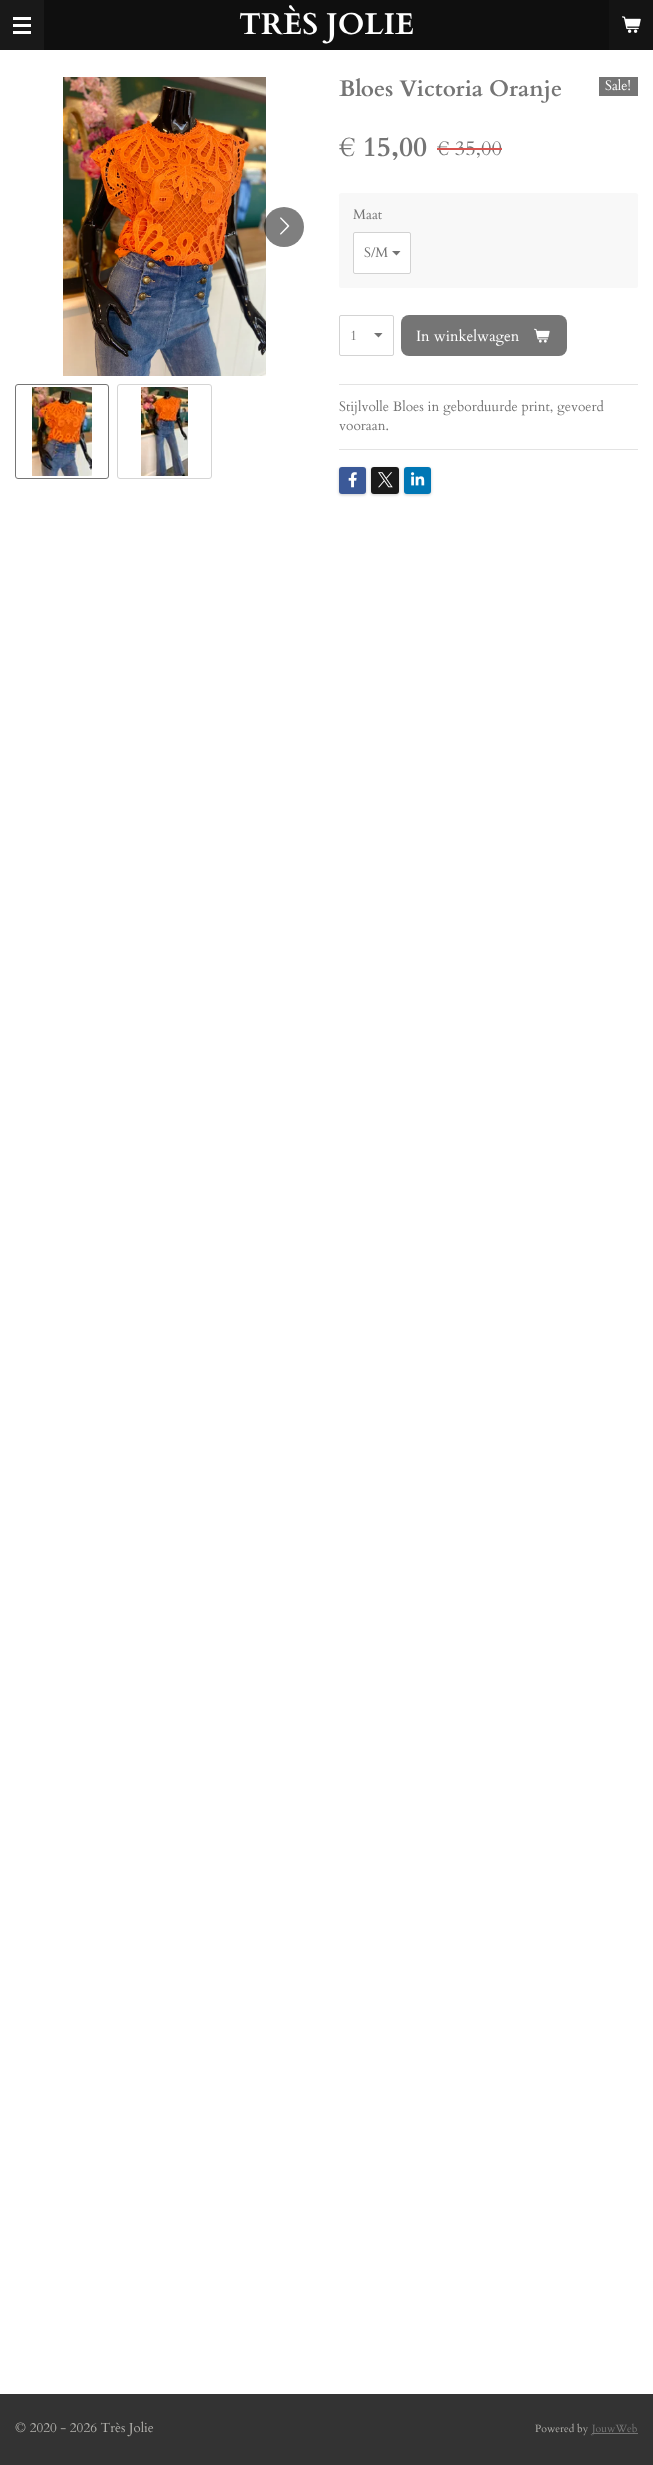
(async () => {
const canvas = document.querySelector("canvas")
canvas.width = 653
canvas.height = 2465
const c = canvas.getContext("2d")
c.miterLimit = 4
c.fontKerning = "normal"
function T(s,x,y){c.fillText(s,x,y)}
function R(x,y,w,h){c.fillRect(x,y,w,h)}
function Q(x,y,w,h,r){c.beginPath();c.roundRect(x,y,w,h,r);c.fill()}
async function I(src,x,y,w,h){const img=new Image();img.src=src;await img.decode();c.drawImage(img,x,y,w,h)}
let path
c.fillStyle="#0f0f0f"
R(0,0,653,2465)
c.fillStyle="#191919"
R(0,0,44,50)
c.fillStyle="#fff"
R(13,24,18,3)
R(13,17,18,3)
R(13,31,18,3)
c.font="bold 30px Cardo"
T("TRÈS JOLIE",239,34)
c.fillStyle="#141414"
R(609,0,44,50)
await I("1.png",622,16,19,17)
c.fillStyle="#fff"
R(0,50,653,2344)
await I("2.png",63,77,203,299)
c.fillStyle="#00000080"
c.beginPath()
c.arc(284,227,20,0,7)
c.fill()
await I("3.png",280,217,10,18)
c.beginPath()
c.roundRect(15.5,384.5,93,94,2.5)
c.strokeStyle="#757575"
c.stroke()
await I("4.png",32,387,60,89)
c.beginPath()
c.roundRect(117.5,384.5,94,94,2.5)
c.strokeStyle="#d5d5d5"
c.stroke()
await I("5.png",141,387,47,89)
c.font="bold 22.5px Cardo"
c.fillStyle="#757575"
T("Bloes Victoria Oranje",339,96)
R(599,77,39,19)
c.font="13.75px Cardo"
c.fillStyle="#fff"
T("Sale!",605,90)
c.font="bold 27.5px Cardo"
c.fillStyle="#757575"
T("€ 15,00",339,156)
c.font="20.5px Cardo"
T("€ 35,00",437,155)
c.fillStyle="#d9534f"
R(437,148,65,2)
c.fillStyle="#f8f8f8"
Q(339,193,299,95,2.5)
c.font="13.75px Cardo"
c.fillStyle="#757575"
T("Maat",353,219)
c.fillStyle="#fff"
Q(353,232,58,42,2)
c.fillStyle="#737373"
path = new Path2D("M396.5 255.5l-4.5-4.5h8.5z")
c.fill(path)
c.beginPath()
c.roundRect(353.5,232.5,57,41,1.5)
c.strokeStyle="#d2d2d2"
c.stroke()
c.fillStyle="#757575"
T("S/M",364,257)
c.fillStyle="#737373"
path = new Path2D("M378.5 337.5l-4.5-4.5h8.5z")
c.fill(path)
c.beginPath()
c.roundRect(339.5,315.5,54,40,1.5)
c.strokeStyle="#d3d3d3"
c.stroke()
c.fillStyle="#757575"
T("1",350,340)
Q(401,315,166,41,8)
c.font="15px Cardo"
c.fillStyle="#fff"
T("In winkelwagen",416,341)
await I("6.png",534,328,16,15)
c.fillStyle="#e3e3e3"
R(339,384,299,1)
c.font="13.75px Cardo"
c.fillStyle="#757575"
T("Stijlvolle Bloes in geborduurde print, gevoerd",339,411)
T("vooraan.",339,430)
c.fillStyle="#e3e3e3"
R(339,449,299,1)
c.fillStyle="#00000033"
c.filter="blur(1.5px)"
c.beginPath()
c.roundRect(339,468,27,27,3)
c.fill()
c.filter="none"
c.fillStyle="#3b5998"
Q(339,467,27,27,3)
await I("7.png",348,472,9,16)
c.fillStyle="#00000033"
c.filter="blur(1.5px)"
c.beginPath()
c.roundRect(371,468,28,27,3)
c.fill()
c.filter="none"
c.fillStyle="#1a1a1a"
Q(371,467,28,27,3)
await I("8.png",378,472,15,16)
c.fillStyle="#00000033"
c.filter="blur(1.5px)"
c.beginPath()
c.roundRect(404,468,27,27,3)
c.fill()
c.filter="none"
c.fillStyle="#0077b5"
Q(404,467,27,27,3)
await I("9.png",411,472,14,14)
c.fillStyle="#333"
R(0,2394,653,71)
c.font="13.25px Cardo"
c.fillStyle="#b1b0ac"
T("© 2020 - 2026 Très Jolie",15,2432)
c.font="10.5px Cardo"
T("Powered by",535,2432)
c.fillStyle="#757575"
R(592,2433,46,1)
T("JouwWeb",592,2432)
})()
